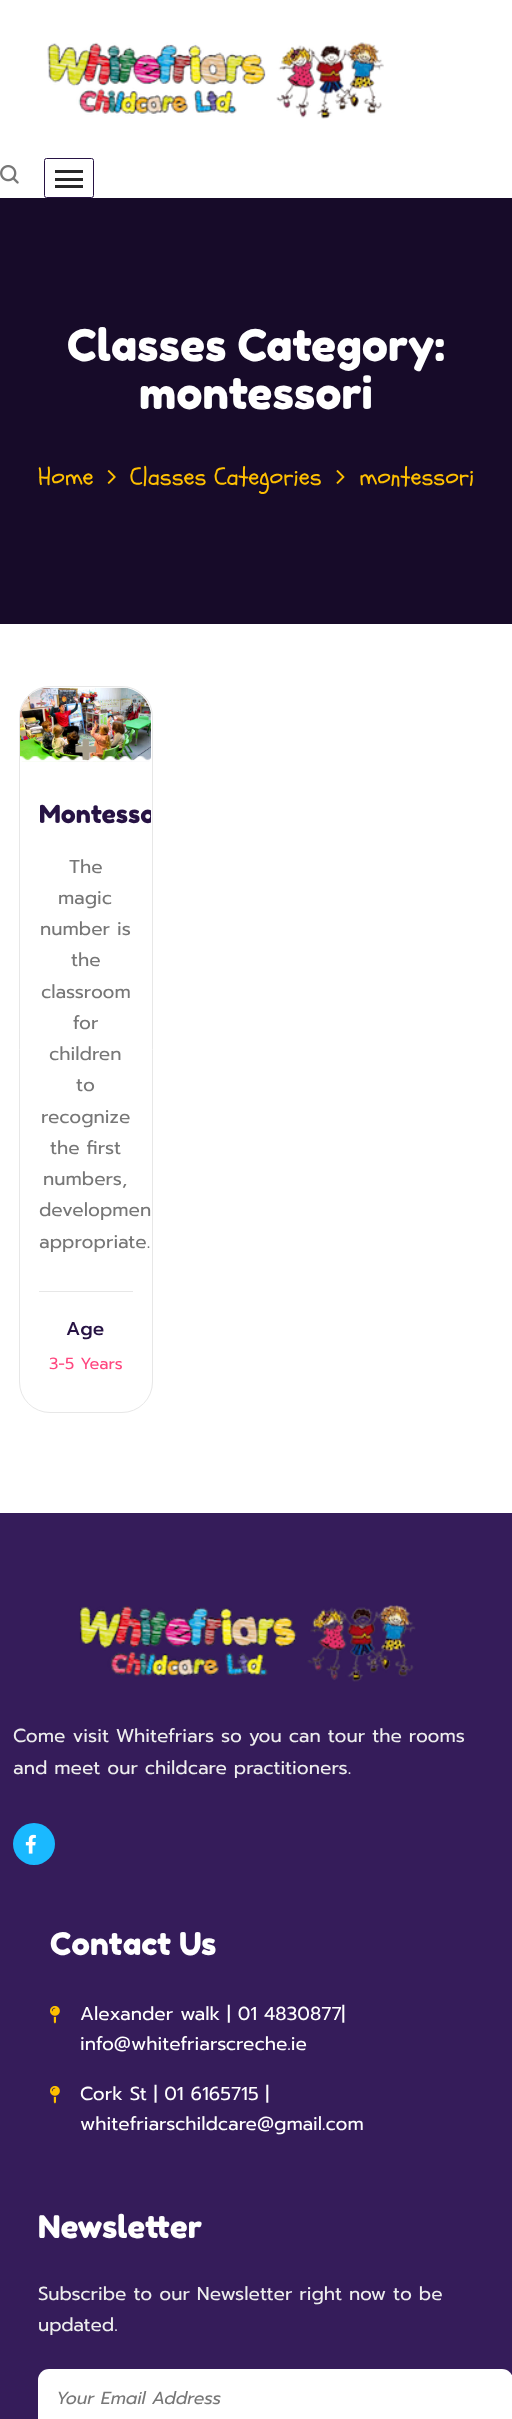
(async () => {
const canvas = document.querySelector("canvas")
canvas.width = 512
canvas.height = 2419
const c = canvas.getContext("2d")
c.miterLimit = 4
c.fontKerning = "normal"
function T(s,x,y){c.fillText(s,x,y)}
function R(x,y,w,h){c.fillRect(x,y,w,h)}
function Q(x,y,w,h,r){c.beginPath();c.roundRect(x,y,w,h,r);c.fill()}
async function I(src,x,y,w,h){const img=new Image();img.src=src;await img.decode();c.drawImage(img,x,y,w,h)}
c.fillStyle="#fff"
R(0,0,512,2419)
await I("1.png",47,42,337,77)
await I("2.png",0,165,19,19)
c.beginPath()
c.roundRect(44.5,158.5,49,39,2)
c.strokeStyle="#271344"
c.stroke()
c.fillStyle="#282828"
R(55,170,28,3)
R(55,178,28,3)
R(55,185,28,3)
c.fillStyle="#170b29"
R(0,198,512,426)
c.font="43.75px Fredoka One"
c.fillStyle="#fff"
T("Classes Category:",67,361)
T("montessori",139,409)
c.font="25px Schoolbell"
c.fillStyle="#ffc000"
T("Home",38,485)
await I("3.png",107,470,9,14)
T("Classes Categories",130,485)
await I("4.png",336,470,9,14)
T("montessori",359,485)
c.beginPath()
c.roundRect(19.5,686.5,133,726,30.5)
c.strokeStyle="#e7e7e7"
c.stroke()
await I("5.png",20,687,131,75)
await I("6.png",20,756,131,6)
c.font="500 62px Prompt"
c.fillStyle="#a79e8c"
T("+",73,768)
c.save()
c.beginPath()
c.roundRect(20,688,131,723,30)
c.clip()
c.font="25px Fredoka One"
c.fillStyle="#271344"
T("Montesso",39,823)
c.restore()
c.font="18.75px Prompt"
c.fillStyle="#777"
T("The",69,873)
T("magic",58,904)
T("number is",40,935)
T("the",71,966)
T("classroom",41,998)
T("for",73,1029)
T("children",49,1060)
T("to",76,1091)
T("recognize",41,1123)
T("the first",50,1154)
T("numbers,",43,1185)
T("developmen",39,1216)
T("appropriate.",39,1248)
c.fillStyle="#e7e7e7"
R(39,1291,94,1)
c.font="500 18.75px Prompt"
c.fillStyle="#271344"
T("Age",66,1335)
c.font="16.25px Prompt"
c.fillStyle="#ff4880"
T("3-5 Years",49,1369)
c.fillStyle="#351c5a"
R(0,1513,512,906)
await I("7.png",79,1605,337,77)
c.font="18.75px Prompt"
c.fillStyle="#ededed"
T("Come visit Whitefriars so you can tour the rooms",13,1742)
T("and meet our childcare practitioners.",13,1774)
c.fillStyle="#1ab9ff"
c.beginPath()
c.arc(34,1844,21,0,7)
c.fill()
await I("8.png",25,1834,11,20)
c.font="31.25px Fredoka One"
c.fillStyle="#fff"
T("Contact Us",50,1955)
await I("9.png",50,2005,10,19)
c.font="18.75px Prompt"
T("Alexander walk | 01 4830877|",80,2020)
T("info@whitefriarscreche.ie",80,2050)
await I("9.png",50,2085,10,19)
T("Cork St | 01 6165715 |",80,2100)
T("whitefriarschildcare@gmail.com",80,2130)
c.font="31.25px Fredoka One"
T("Newsletter",38,2238)
c.font="18.75px Prompt"
c.fillStyle="#ededed"
T("Subscribe to our Newsletter right now to be",38,2300)
T("updated.",38,2331)
c.fillStyle="#fff"
Q(38,2369,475,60,11)
c.font="italic 17.5px Prompt"
c.fillStyle="#777"
T("Your Email Address",56,2404)
})()
